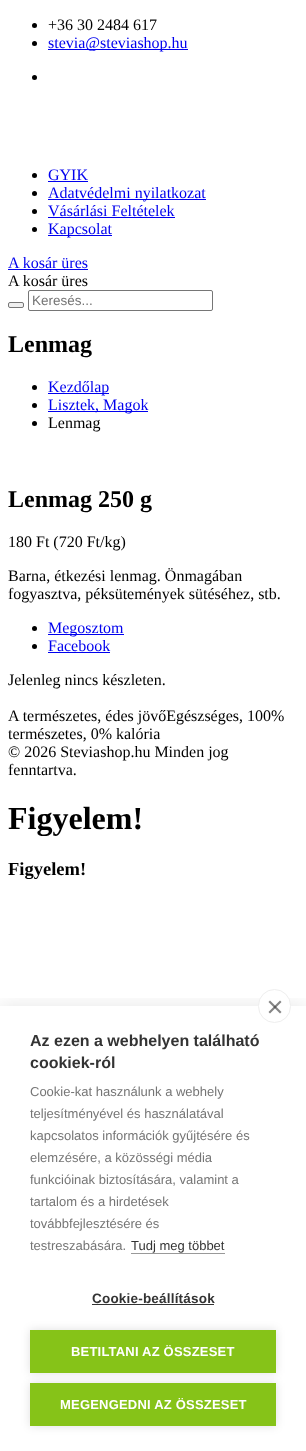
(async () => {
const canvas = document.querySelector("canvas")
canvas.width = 306
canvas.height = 1451
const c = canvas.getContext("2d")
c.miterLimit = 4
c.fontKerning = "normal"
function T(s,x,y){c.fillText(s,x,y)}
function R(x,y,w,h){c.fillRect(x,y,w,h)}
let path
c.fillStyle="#fff"
R(0,0,306,1451)
c.fillStyle="#000"
c.beginPath()
c.arc(34.5,25.5,2.5,0,7)
c.fill()
c.font="16px Liberation Serif"
T("+36 30 2484 617",48,30)
c.beginPath()
c.arc(34.5,43.5,2.5,0,7)
c.fill()
c.fillStyle="#00e"
R(48,49,140,1)
T("stevia@steviashop.hu",48,48)
c.fillStyle="#000"
c.beginPath()
c.arc(34.5,77.5,2.5,0,7)
c.fill()
c.beginPath()
c.arc(34.5,175.5,2.5,0,7)
c.fill()
c.fillStyle="#00e"
T("GYIK",48,180)
R(48,181,40,1)
c.fillStyle="#000"
c.beginPath()
c.arc(34.5,193.5,2.5,0,7)
c.fill()
c.fillStyle="#00e"
R(48,199,158,1)
T("Adatvédelmi nyilatkozat",48,198)
c.fillStyle="#000"
c.beginPath()
c.arc(34.5,211.5,2.5,0,7)
c.fill()
c.fillStyle="#00e"
T("Vásárlási Feltételek",48,216)
R(48,217,127,1)
c.fillStyle="#000"
c.beginPath()
c.arc(34.5,229.5,2.5,0,7)
c.fill()
c.fillStyle="#00e"
R(48,235,64,1)
T("Kapcsolat",48,234)
T("A kosár üres",8,268)
R(8,269,80,1)
c.fillStyle="#000"
T("A kosár üres",8,286)
c.fillStyle="#efefef"
c.beginPath()
c.roundRect(8.5,302.5,15,5,1.5)
c.fill()
c.strokeStyle="#767676"
c.stroke()
c.beginPath()
c.roundRect(28.5,290.5,184,20,1.5)
c.stroke()
c.font="13.5px Liberation Sans"
c.fillStyle="#757575"
T("Keresés...",32,305)
c.font="bold 24px Liberation Serif"
c.fillStyle="#000"
T("Lenmag",8,352)
c.beginPath()
c.arc(34.5,387.5,2.5,0,7)
c.fill()
c.fillStyle="#00e"
R(48,393,61,1)
c.font="16px Liberation Serif"
T("Kezdőlap",48,392)
c.fillStyle="#000"
c.beginPath()
c.arc(34.5,405.5,2.5,0,7)
c.fill()
c.fillStyle="#00e"
R(48,411,100,1)
T("Lisztek, Magok",48,410)
c.fillStyle="#000"
c.beginPath()
c.arc(34.5,423.5,2.5,0,7)
c.fill()
T("Lenmag",48,428)
c.font="bold 24px Liberation Serif"
T("Lenmag 250 g",8,507)
c.font="16px Liberation Serif"
T("180 Ft (720 Ft/kg)",8,547)
T("Barna, étkezési lenmag. Önmagában",8,581)
T("fogyasztva, péksütemények sütéséhez, stb.",8,599)
c.beginPath()
c.arc(34.5,628.5,2.5,0,7)
c.fill()
c.fillStyle="#00e"
R(48,634,76,1)
T("Megosztom",48,633)
c.fillStyle="#000"
c.beginPath()
c.arc(34.5,646.5,2.5,0,7)
c.fill()
c.fillStyle="#00e"
T("Facebook",48,651)
R(48,652,62,1)
c.fillStyle="#000"
T("Jelenleg nincs készleten.",8,685)
T("A természetes, édes jövőEgészséges, 100%",8,721)
T("természetes, 0% kalória",8,739)
T("© 2026 Steviashop.hu Minden jog",8,757)
T("fenntartva.",8,775)
c.font="bold 32px Liberation Serif"
T("Figyelem!",8,829)
c.font="bold 18.5px Liberation Serif"
T("Figyelem!",8,875)
c.save()
c.beginPath()
c.rect(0,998,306,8)
c.clip()
c.fillStyle="#0000001a"
c.filter="blur(10px)"
c.beginPath()
c.rect(0,1006,306,445)
c.fill()
c.filter="none"
c.restore()
c.fillStyle="#fff"
c.beginPath()
c.roundRect(258.5,989.5,32,33,16)
c.fill()
c.strokeStyle="#eee"
c.stroke()
c.fillStyle="#858585"
path = new Path2D("M268.5 1012l11.5-11.5l1.5 1.5l-11.5 11.5z")
c.fill(path)
c.fillStyle="#33333399"
path = new Path2D("M270 1000.5l11.5 11.5l-1.5 1.5l-11.5-11.5z")
c.fill(path)
c.font="bold 16px Liberation Sans"
c.fillStyle="#333"
T("Az ezen a webhelyen található",30,1046)
T("cookiek-ról",30,1068)
c.font="13px Liberation Sans"
c.fillStyle="#757575"
T("Cookie-kat használunk a webhely",30,1096)
T("teljesítményével és használatával",30,1118)
T("kapcsolatos információk gyűjtésére és",30,1140)
T("elemzésére, a közösségi média",30,1162)
T("funkcióinak biztosítására, valamint a",30,1184)
T("tartalom és a hirdetések",30,1206)
T("továbbfejlesztésére és",30,1228)
T("testreszabására.",30,1250)
c.fillStyle="#333"
T("Tudj meg többet",131,1250)
c.fillStyle="#999"
R(131,1253,94,1)
c.letterSpacing="0.2px"
c.font="bold 13.5px Liberation Sans"
c.fillStyle="#333"
T("Cookie-beállítások",92,1303)
R(92,1304,122,1)
c.fillStyle="#0000001f"
c.filter="blur(5px)"
c.beginPath()
c.rect(30,1330,246,43)
c.fill()
c.filter="none"
c.fillStyle="#86c318"
R(30,1330,246,43)
c.font="bold 13px Liberation Sans"
c.fillStyle="#fff"
T("BETILTANI AZ ÖSSZESET",71,1356)
c.fillStyle="#0000001f"
c.filter="blur(5px)"
c.beginPath()
c.rect(30,1383,246,43)
c.fill()
c.filter="none"
c.fillStyle="#86c318"
R(30,1383,246,43)
c.fillStyle="#fff"
T("MEGENGEDNI AZ ÖSSZESET",60,1409)
})()
